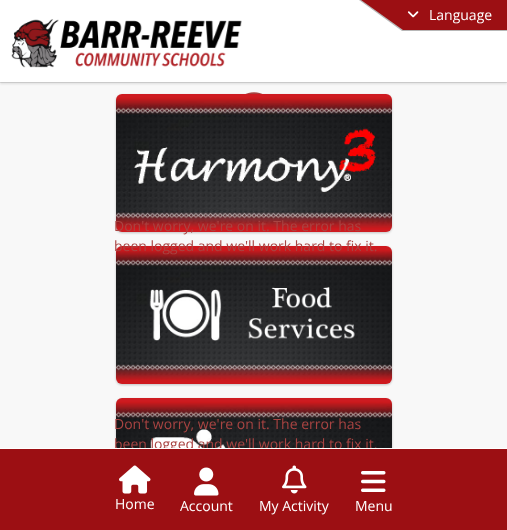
(async () => {
const canvas = document.querySelector("canvas")
canvas.width = 507
canvas.height = 530
const c = canvas.getContext("2d")
c.miterLimit = 4
c.fontKerning = "normal"
function T(s,x,y){c.fillText(s,x,y)}
function R(x,y,w,h){c.fillRect(x,y,w,h)}
async function I(src,x,y,w,h){const img=new Image();img.src=src;await img.decode();c.drawImage(img,x,y,w,h)}
let path
c.fillStyle="#f8f8f8"
R(0,0,507,530)
c.fillStyle="#dfdfdf"
R(0,82,507,1)
c.fillStyle="#0000001a"
c.filter="blur(1px)"
c.beginPath()
c.rect(0,2,507,82)
c.fill()
c.filter="none"
c.fillStyle="#fff"
R(0,0,507,82)
c.fillStyle="#b7b7b7"
path = new Path2D("M359 0l43 31h105v-31z")
c.fill(path)
c.fillStyle="#9c0f13"
path = new Path2D("M361 0l42 30h104v-30z")
c.fill(path)
await I("1.png",407,11,12,7)
c.font="14px Open Sans"
c.fillStyle="#fff"
T("Language",429,20)
await I("2.png",11,19,231,49)
await I("4.png",245,92,18,2)
c.fillStyle="#00000038"
c.filter="blur(1px)"
c.beginPath()
c.roundRect(116,95,276,138,6)
c.fill()
c.filter="none"
await I("3.png",116,94,276,138)
c.fillStyle="#a94442"
T("Don't worry, we're on it. The error has",114,231)
c.fillStyle="#00000038"
c.filter="blur(1px)"
c.beginPath()
c.roundRect(116,247,276,138,6)
c.fill()
c.filter="none"
await I("5.png",116,246,276,138)
c.fillStyle="#a94442"
T("been logged and we'll work hard to fix it.",114,251)
c.fillStyle="#00000038"
c.filter="blur(1px)"
c.beginPath()
c.roundRect(116,399,276,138,6)
c.fill()
c.filter="none"
await I("6.png",116,398,276,50)
c.fillStyle="#a94442"
T("Don't worry, we're on it. The error has",114,429)
T("been logged and we'll work hard to fix it.",114,449)
c.fillStyle="#9c0f13"
R(0,449,507,81)
c.fillStyle="#fff"
R(0,448,507,1)
await I("7.png",119,465,32,29)
T("Home",115,509)
await I("8.png",194,467,25,29)
T("Account",180,511)
await I("9.png",282,465,25,29)
T("My Activity",259,511)
await I("10.png",361,471,25,21)
T("Menu",355,511)
})()
